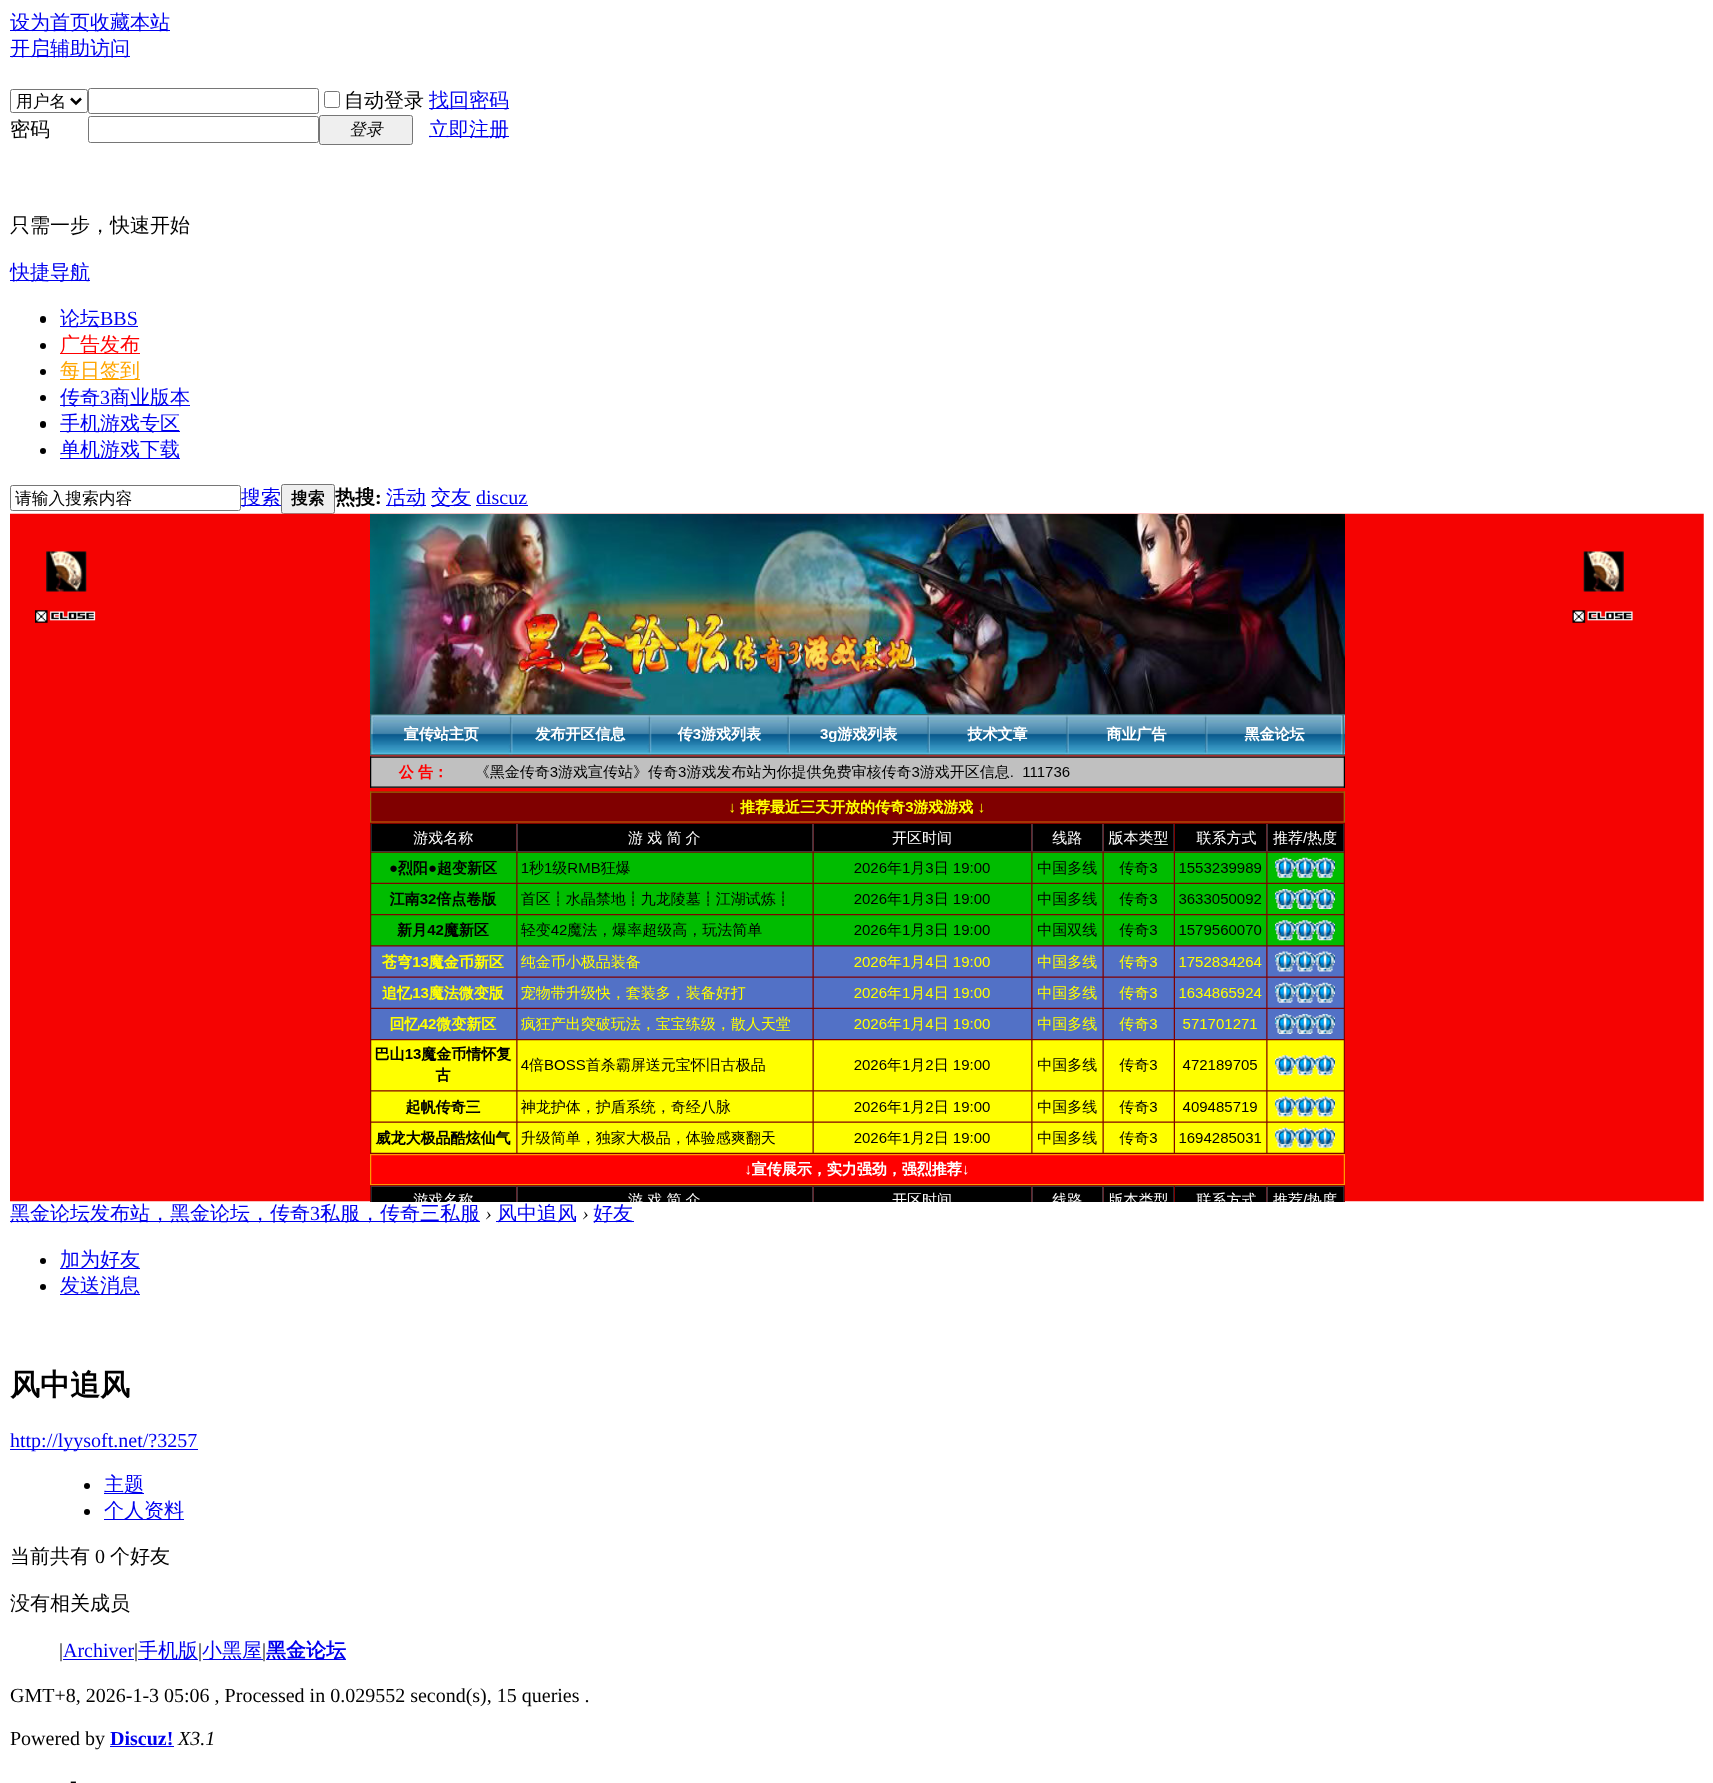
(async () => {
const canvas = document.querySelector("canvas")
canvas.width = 1713
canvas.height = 1783
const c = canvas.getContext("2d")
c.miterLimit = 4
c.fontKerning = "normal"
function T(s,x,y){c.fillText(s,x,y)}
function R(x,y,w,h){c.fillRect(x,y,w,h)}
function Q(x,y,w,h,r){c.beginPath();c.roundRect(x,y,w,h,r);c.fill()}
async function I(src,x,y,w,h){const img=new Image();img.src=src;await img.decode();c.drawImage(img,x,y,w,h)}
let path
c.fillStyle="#fff"
R(0,0,1713,1783)
c.fillStyle="#00e"
R(10,30,160,1)
c.font="500 20px WenQuanYi Zen Hei"
T("设为首页收藏本站",10,29)
R(10,56,120,1)
T("开启辅助访问",10,55)
c.beginPath()
c.roundRect(10.5,89.5,77,23,2)
c.strokeStyle="#767676"
c.stroke()
path = new Path2D("M71 98.5l5 5l5-5")
c.strokeStyle="#000"
c.lineWidth=2.5
c.stroke(path)
c.font="500 16.75px WenQuanYi Zen Hei"
c.fillStyle="#000"
T("用户名",16,107)
c.beginPath()
c.roundRect(88.5,88.5,230,25,2)
c.strokeStyle="#767676"
c.lineWidth=1
c.stroke()
c.beginPath()
c.roundRect(324.5,91.5,15,16,2)
c.stroke()
c.font="500 20px WenQuanYi Zen Hei"
T("自动登录",344,107)
c.fillStyle="#00e"
R(429,108,80,1)
T("找回密码",429,107)
c.fillStyle="#000"
T("密码",10,136)
c.beginPath()
c.roundRect(88.5,116.5,230,26,2)
c.stroke()
c.fillStyle="#efefef"
c.beginPath()
c.roundRect(319.5,115.5,93,29,2)
c.fill()
c.stroke()
c.font="italic 500 16.75px WenQuanYi Zen Hei"
c.fillStyle="#000"
T("登录",349,135)
c.fillStyle="#00e"
R(429,136,80,1)
c.font="500 20px WenQuanYi Zen Hei"
T("立即注册",429,136)
c.fillStyle="#000"
T("只需一步，快速开始",10,232)
c.fillStyle="#00e"
R(10,280,80,1)
T("快捷导航",10,279)
c.fillStyle="#000"
Q(40,316,6,7,3)
c.fillStyle="#00e"
R(60,326,78,1)
T("论坛",60,325)
c.font="20px Liberation Serif"
T("BBS",100,325)
c.fillStyle="#000"
c.beginPath()
c.arc(43,346,3,0,7)
c.fill()
c.fillStyle="#f00"
R(60,353,80,1)
c.font="500 20px WenQuanYi Zen Hei"
T("广告发布",60,351)
c.fillStyle="#000"
c.beginPath()
c.arc(43,372,3,0,7)
c.fill()
c.fillStyle="#ffa500"
R(60,379,80,1)
T("每日签到",60,377)
c.fillStyle="#000"
c.beginPath()
c.arc(43,398,3,0,7)
c.fill()
c.fillStyle="#00e"
R(60,405,130,1)
T("传奇",60,404)
c.font="20px Liberation Serif"
T("3",100,404)
c.font="500 20px WenQuanYi Zen Hei"
T("商业版本",110,404)
c.fillStyle="#000"
Q(40,421,6,7,3)
c.fillStyle="#00e"
R(60,431,120,1)
T("手机游戏专区",60,430)
c.fillStyle="#000"
c.beginPath()
c.arc(43,451,3,0,7)
c.fill()
c.fillStyle="#00e"
R(60,458,120,1)
T("单机游戏下载",60,456)
c.beginPath()
c.roundRect(10.5,485.5,230,25,2)
c.stroke()
c.font="500 16.75px WenQuanYi Zen Hei"
c.fillStyle="#000"
T("请输入搜索内容",15,504)
c.fillStyle="#00e"
R(241,505,40,1)
c.font="500 20px WenQuanYi Zen Hei"
T("搜索",241,504)
c.fillStyle="#efefef"
c.beginPath()
c.roundRect(281.5,484.5,53,29,2)
c.fill()
c.stroke()
c.font="bold 16.75px WenQuanYi Zen Hei"
c.fillStyle="#000"
T("搜索",291,504)
c.font="bold 20px WenQuanYi Zen Hei"
T("热搜",335,504)
c.font="bold 20px Liberation Serif"
T(":",375,504)
c.fillStyle="#00e"
R(386,505,40,1)
c.font="500 20px WenQuanYi Zen Hei"
T("活动",386,504)
R(431,505,40,1)
T("交友",431,504)
c.font="20px Liberation Serif"
T("discuz",476,504)
R(476,505,52,1)
await I("1.png",10,513,1694,689)
R(10,1221,470,1)
c.font="500 20px WenQuanYi Zen Hei"
T("黑金论坛发布站，黑金论坛，传奇",10,1220)
c.font="20px Liberation Serif"
T("3",310,1220)
c.font="500 20px WenQuanYi Zen Hei"
T("私服，传奇三私服",320,1220)
c.font="italic 20px Liberation Serif"
c.fillStyle="#000"
T("›",485,1220)
c.fillStyle="#00e"
R(496,1221,80,1)
c.font="500 20px WenQuanYi Zen Hei"
T("风中追风",497,1220)
c.font="italic 20px Liberation Serif"
c.fillStyle="#000"
T("›",582,1220)
c.fillStyle="#00e"
R(594,1221,40,1)
c.font="500 20px WenQuanYi Zen Hei"
T("好友",593,1220)
c.fillStyle="#000"
c.beginPath()
c.arc(43,1261,3,0,7)
c.fill()
c.fillStyle="#00e"
R(60,1268,80,1)
T("加为好友",60,1266)
c.fillStyle="#000"
c.beginPath()
c.arc(43,1287,3,0,7)
c.fill()
c.fillStyle="#00e"
R(60,1294,80,1)
T("发送消息",60,1292)
c.font="bold 30px WenQuanYi Zen Hei"
c.fillStyle="#000"
T("风中追风",10,1395)
c.fillStyle="#00e"
R(10,1449,188,1)
c.font="20px Liberation Serif"
T("http://lyysoft.net/?3257",10,1447)
c.fillStyle="#000"
c.beginPath()
c.arc(87,1486,3,0,7)
c.fill()
c.fillStyle="#00e"
R(104,1493,40,1)
c.font="500 20px WenQuanYi Zen Hei"
T("主题",104,1491)
c.fillStyle="#000"
c.beginPath()
c.arc(87,1512,3,0,7)
c.fill()
c.fillStyle="#00e"
R(104,1519,80,1)
T("个人资料",104,1517)
c.fillStyle="#000"
T("当前共有",10,1563)
c.font="20px Liberation Serif"
T("0",95,1563)
c.font="500 20px WenQuanYi Zen Hei"
T("个好友",110,1563)
T("没有相关成员",10,1610)
c.font="20px Liberation Serif"
T("|",59,1657)
c.fillStyle="#00e"
T("Archiver",63,1657)
R(63,1659,71,1)
c.fillStyle="#000"
T("|",134,1657)
c.fillStyle="#00e"
R(138,1659,60,1)
c.font="500 20px WenQuanYi Zen Hei"
T("手机版",138,1657)
c.font="20px Liberation Serif"
c.fillStyle="#000"
T("|",198,1657)
c.fillStyle="#00e"
R(203,1659,60,1)
c.font="500 20px WenQuanYi Zen Hei"
T("小黑屋",202,1657)
c.font="20px Liberation Serif"
c.fillStyle="#000"
T("|",262,1657)
c.fillStyle="#00e"
R(266,1659,80,1)
c.font="bold 20px WenQuanYi Zen Hei"
T("黑金论坛",266,1657)
c.font="20px Liberation Serif"
c.fillStyle="#000"
T("GMT+8, 2026-1-3 05:06 , Processed in 0.029552 second(s), 15 queries .",10,1702)
T("Powered by",10,1745)
c.font="bold 20px Liberation Serif"
c.fillStyle="#00e"
T("Discuz!",110,1745)
R(110,1746,64,1)
c.font="italic 20px Liberation Serif"
c.fillStyle="#000"
T("X3.1",178,1745)
c.font="20px Liberation Serif"
T("-",70,1787)
})()
